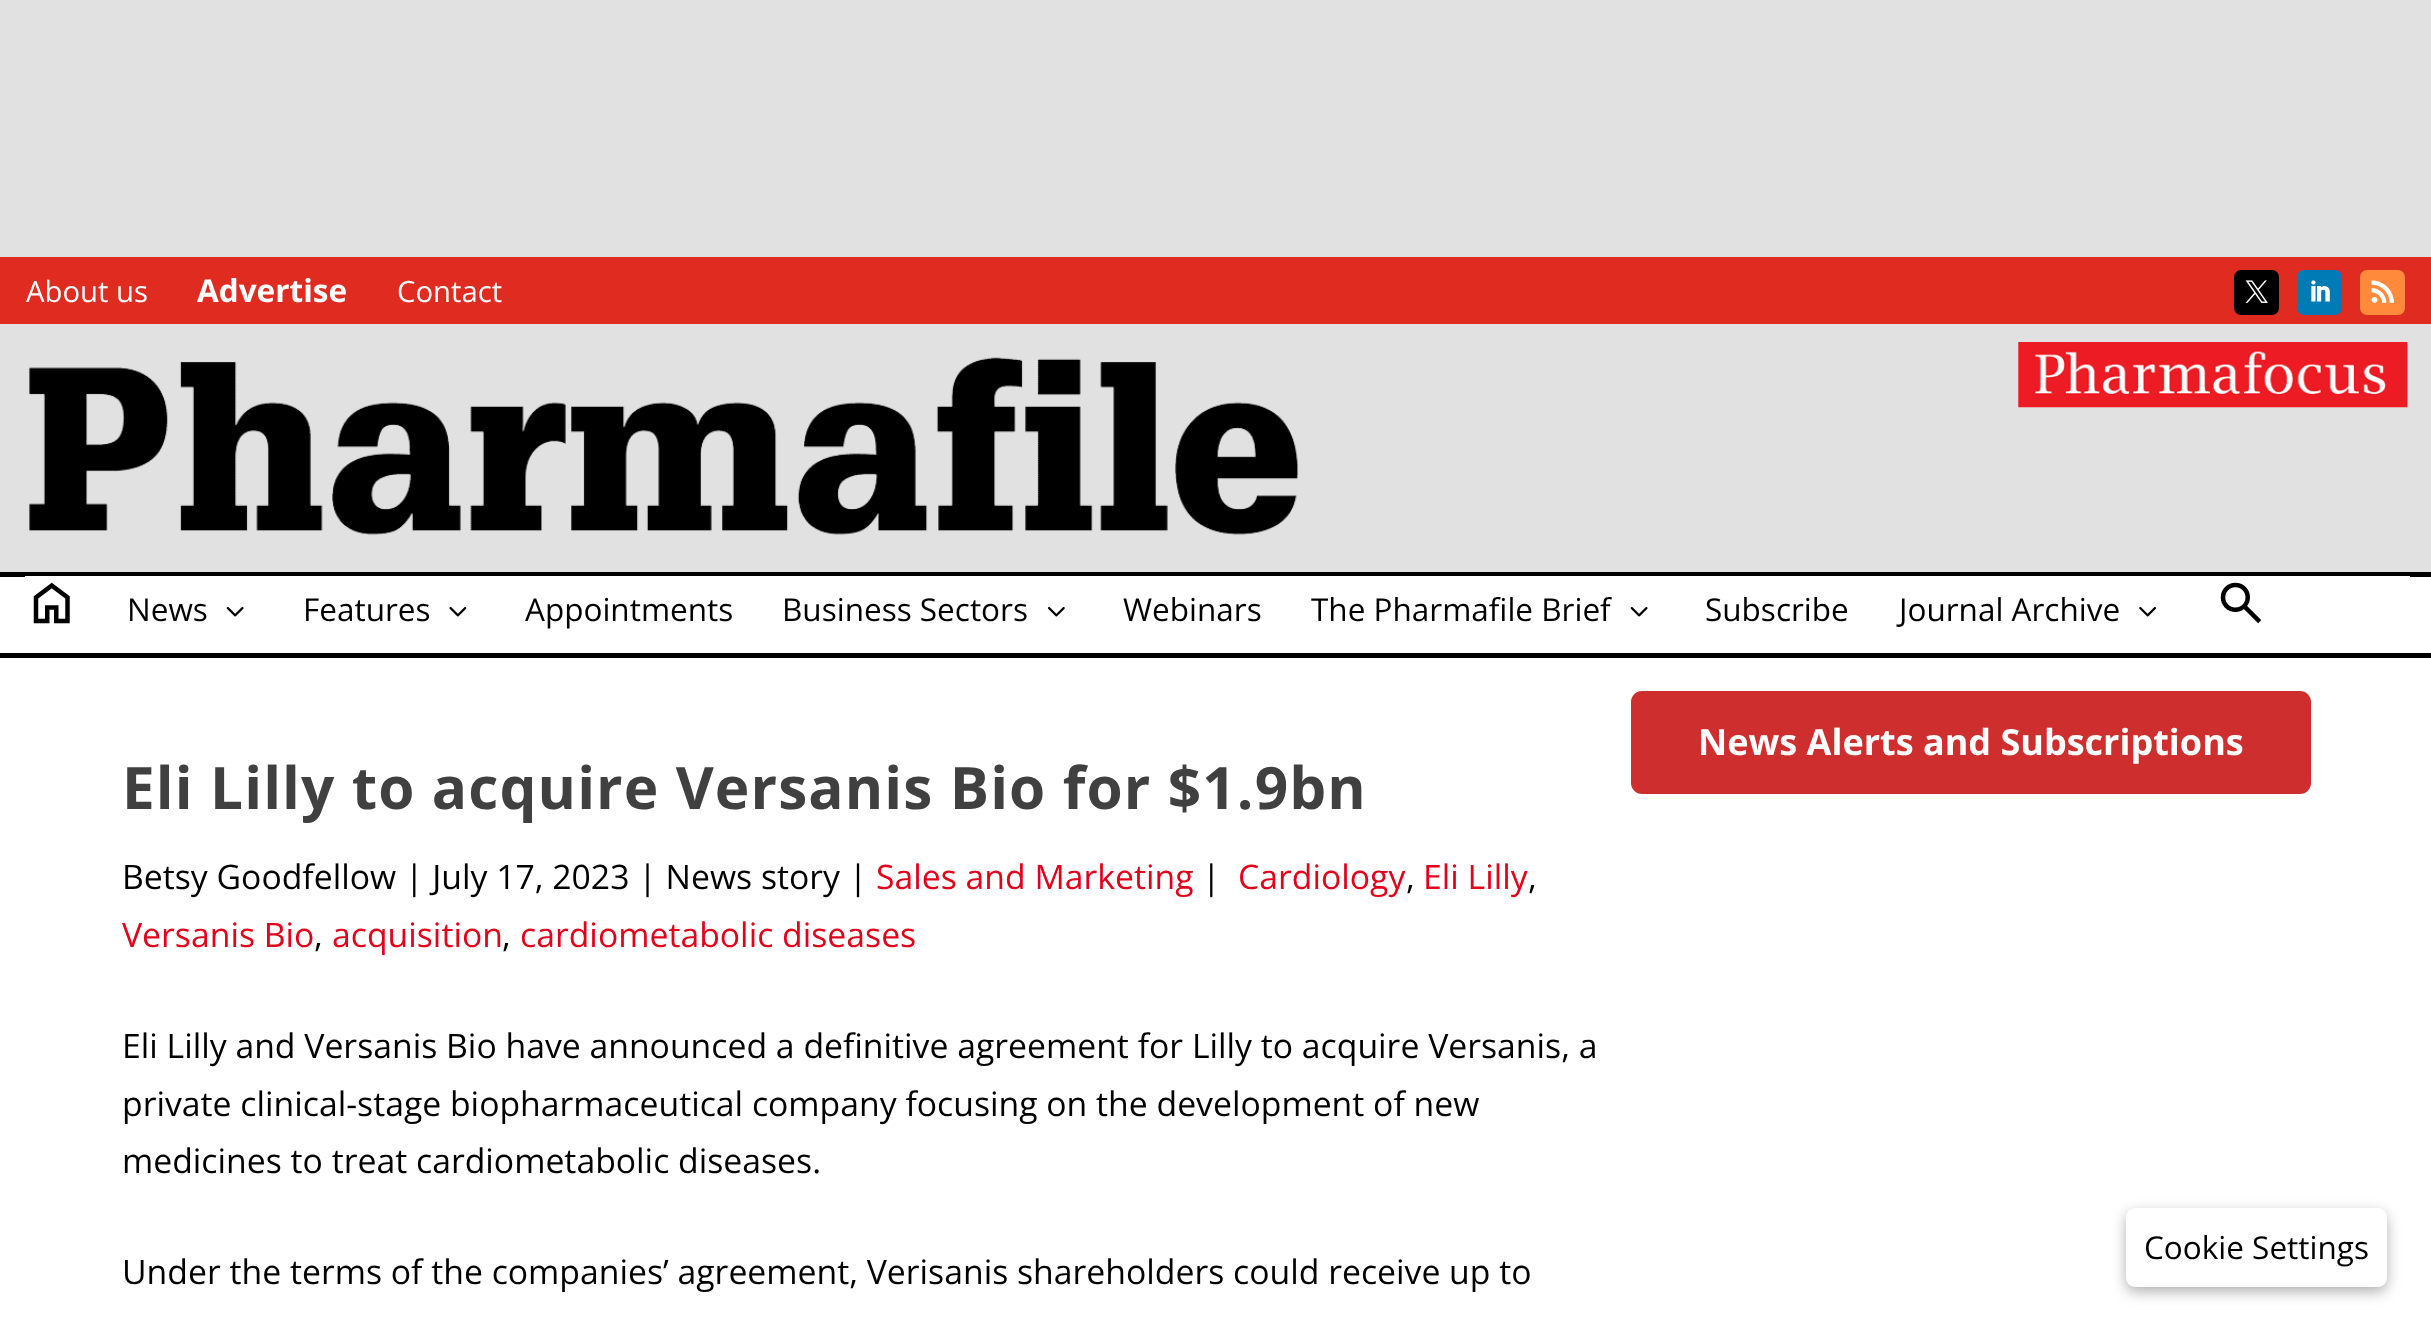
(async () => {
const canvas = document.querySelector("canvas")
canvas.width = 2431
canvas.height = 1332
const c = canvas.getContext("2d")
c.miterLimit = 4
c.fontKerning = "normal"
function T(s,x,y){c.fillText(s,x,y)}
function R(x,y,w,h){c.fillRect(x,y,w,h)}
function Q(x,y,w,h,r){c.beginPath();c.roundRect(x,y,w,h,r);c.fill()}
async function I(src,x,y,w,h){const img=new Image();img.src=src;await img.decode();c.drawImage(img,x,y,w,h)}
c.fillStyle="#fff"
R(0,0,2431,1332)
c.fillStyle="#e1e1e1"
R(0,0,2431,257)
c.fillStyle="#e02b20"
R(0,257,2431,67)
c.font="29.25px Open Sans"
c.fillStyle="#fff"
T("About us",26,302)
c.font="bold 31.5px Open Sans"
T("Advertise",197,302)
c.font="29.25px Open Sans"
T("Contact",397,302)
c.fillStyle="#000"
Q(2234,270,45,45,7)
await I("1.png",2245,280,23,23)
c.fillStyle="#007bb6"
Q(2297,270,45,45,7)
await I("2.png",2311,280,19,22)
c.fillStyle="#ff8a3c"
Q(2360,270,45,45,7)
await I("3.png",2371,280,23,23)
c.fillStyle="#e1e1e1"
R(0,324,2431,248)
await I("4.png",29,357,1270,178)
await I("5.png",2018,342,390,66)
c.fillStyle="#000"
R(0,572,2431,5)
R(0,653,2431,5)
c.fillStyle="#fff"
R(25,576,2385,1)
await I("6.png",33,582,37,42)
c.font="31.5px Open Sans"
c.fillStyle="#000"
T("News",127,621)
await I("7.png",226,607,18,10)
T("Features",303,621)
await I("8.png",449,607,18,10)
T("Appointments",525,621)
T("Business Sectors",782,621)
await I("9.png",1048,607,17,10)
T("Webinars",1123,621)
T("The Pharmafile Brief",1311,621)
await I("7.png",1630,607,18,10)
T("Subscribe",1705,621)
T("Journal Archive",1899,621)
await I("10.png",2139,607,17,10)
await I("11.png",2220,582,42,42)
c.fillStyle="#cf2e2e"
Q(1631,691,680,103,11)
c.font="bold 36px Open Sans"
c.fillStyle="#fff"
T("News Alerts and Subscriptions",1698,755)
c.letterSpacing="1.1px"
c.font="bold 58.5px Open Sans"
c.fillStyle="#404040"
T("Eli Lilly to acquire Versanis Bio for $1.9bn",122,809)
c.letterSpacing="0px"
c.font="33.75px Open Sans"
c.fillStyle="#000"
T("Betsy Goodfellow | July 17, 2023 | News story |",122,889)
c.fillStyle="#e2001a"
T("Sales and Marketing",876,889)
c.fillStyle="#000"
T("|",1202,889)
c.fillStyle="#e2001a"
T("Cardiology",1238,889)
c.fillStyle="#000"
T(",",1406,889)
c.fillStyle="#e2001a"
T("Eli Lilly",1423,889)
c.fillStyle="#000"
T(",",1528,889)
c.fillStyle="#e2001a"
T("Versanis Bio",122,947)
c.fillStyle="#000"
T(",",314,947)
c.fillStyle="#e2001a"
T("acquisition",332,947)
c.fillStyle="#000"
T(",",502,947)
c.fillStyle="#e2001a"
T("cardiometabolic diseases",520,947)
c.fillStyle="#000"
T("Eli Lilly and Versanis Bio have announced a definitive agreement for Lilly to acquire Versanis, a",122,1058)
T("private clinical-stage biopharmaceutical company focusing on the development of new",122,1116)
T("medicines to treat cardiometabolic diseases.",122,1173)
T("Under the terms of the companies’ agreement, Verisanis shareholders could receive up to",122,1284)
c.fillStyle="#0000004d"
c.filter="blur(7px)"
c.beginPath()
c.roundRect(2126,1213,261,79,9)
c.fill()
c.filter="none"
c.fillStyle="#fff"
Q(2126,1208,261,79,9)
c.font="31.5px Open Sans"
c.fillStyle="#000"
T("Cookie Settings",2144,1259)
})()
